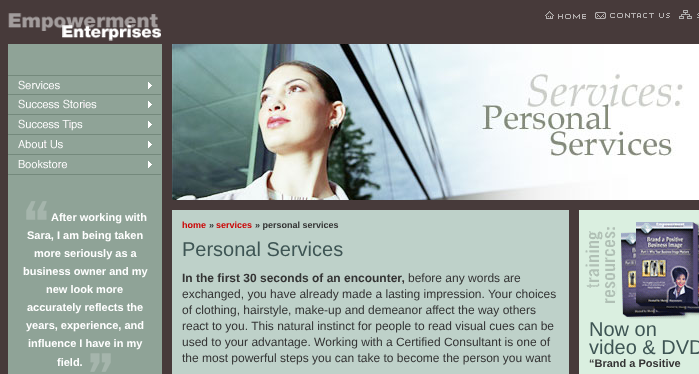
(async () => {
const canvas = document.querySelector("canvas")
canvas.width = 699
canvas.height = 374
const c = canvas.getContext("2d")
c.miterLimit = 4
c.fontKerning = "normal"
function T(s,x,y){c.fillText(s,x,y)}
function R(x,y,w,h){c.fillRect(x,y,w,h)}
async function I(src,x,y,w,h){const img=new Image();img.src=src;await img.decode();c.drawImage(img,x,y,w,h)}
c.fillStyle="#473a3a"
R(0,0,699,374)
await I("1.png",8,13,153,28)
await I("2.png",545,11,41,8)
await I("3.png",595,12,75,7)
await I("4.png",679,10,20,9)
c.fillStyle="#fff"
R(684,44,15,156)
await I("5.png",172,44,512,156)
c.fillStyle="#8fa397"
R(8,44,154,330)
await I("6.png",8,75,153,15)
await I("7.png",8,94,153,15)
await I("8.png",8,114,153,17)
await I("9.png",8,134,153,15)
await I("10.png",8,154,153,15)
c.fillStyle="#74897c"
R(8,174,153,1)
await I("11.png",26,201,21,19)
c.font="bold 11px Liberation Sans"
c.fillStyle="#fff"
T("After working with",51,221)
T("Sara, I am being taken",27,239)
T("more seriously as a",34,257)
T("business owner and my",23,275)
T("new look more",46,293)
T("accurately reflects the",27,311)
T("years, experience, and",26,329)
T("influence I have in my",28,347)
T("field.",57,366)
await I("12.png",90,353,21,19)
c.fillStyle="#bed1c9"
R(172,210,397,164)
c.font="bold 9px Liberation Sans"
c.fillStyle="#c00"
T("home",182,228)
c.fillStyle="#333"
T("»",209,228)
c.fillStyle="#c00"
T("services",216,228)
c.fillStyle="#333"
T("» personal services",255,228)
c.font="20px Liberation Sans"
c.fillStyle="#3e5554"
T("Personal Services",182,256)
c.font="bold 12px Liberation Sans"
c.fillStyle="#333"
T("In the first 30 seconds of an encounter,",182,282)
c.font="12px Liberation Sans"
T("before any words are",408,282)
T("exchanged, you have already made a lasting impression. Your choices",182,298)
T("of clothing, hairstyle, make-up and demeanor affect the way others",182,314)
T("react to you. This natural instinct for people to read visual cues can be",182,330)
T("used to your advantage. Working with a Certified Consultant is one of",182,346)
T("the most powerful steps you can take to become the person you want",182,362)
c.fillStyle="#daefe0"
R(579,210,120,164)
await I("13.png",585,222,114,97)
c.font="20px Liberation Sans"
c.fillStyle="#3e5554"
T("Now on",589,336)
T("video & DVD",589,354)
c.font="bold 11px Liberation Sans"
c.fillStyle="#333"
T("“Brand a Positive",589,367)
})()
